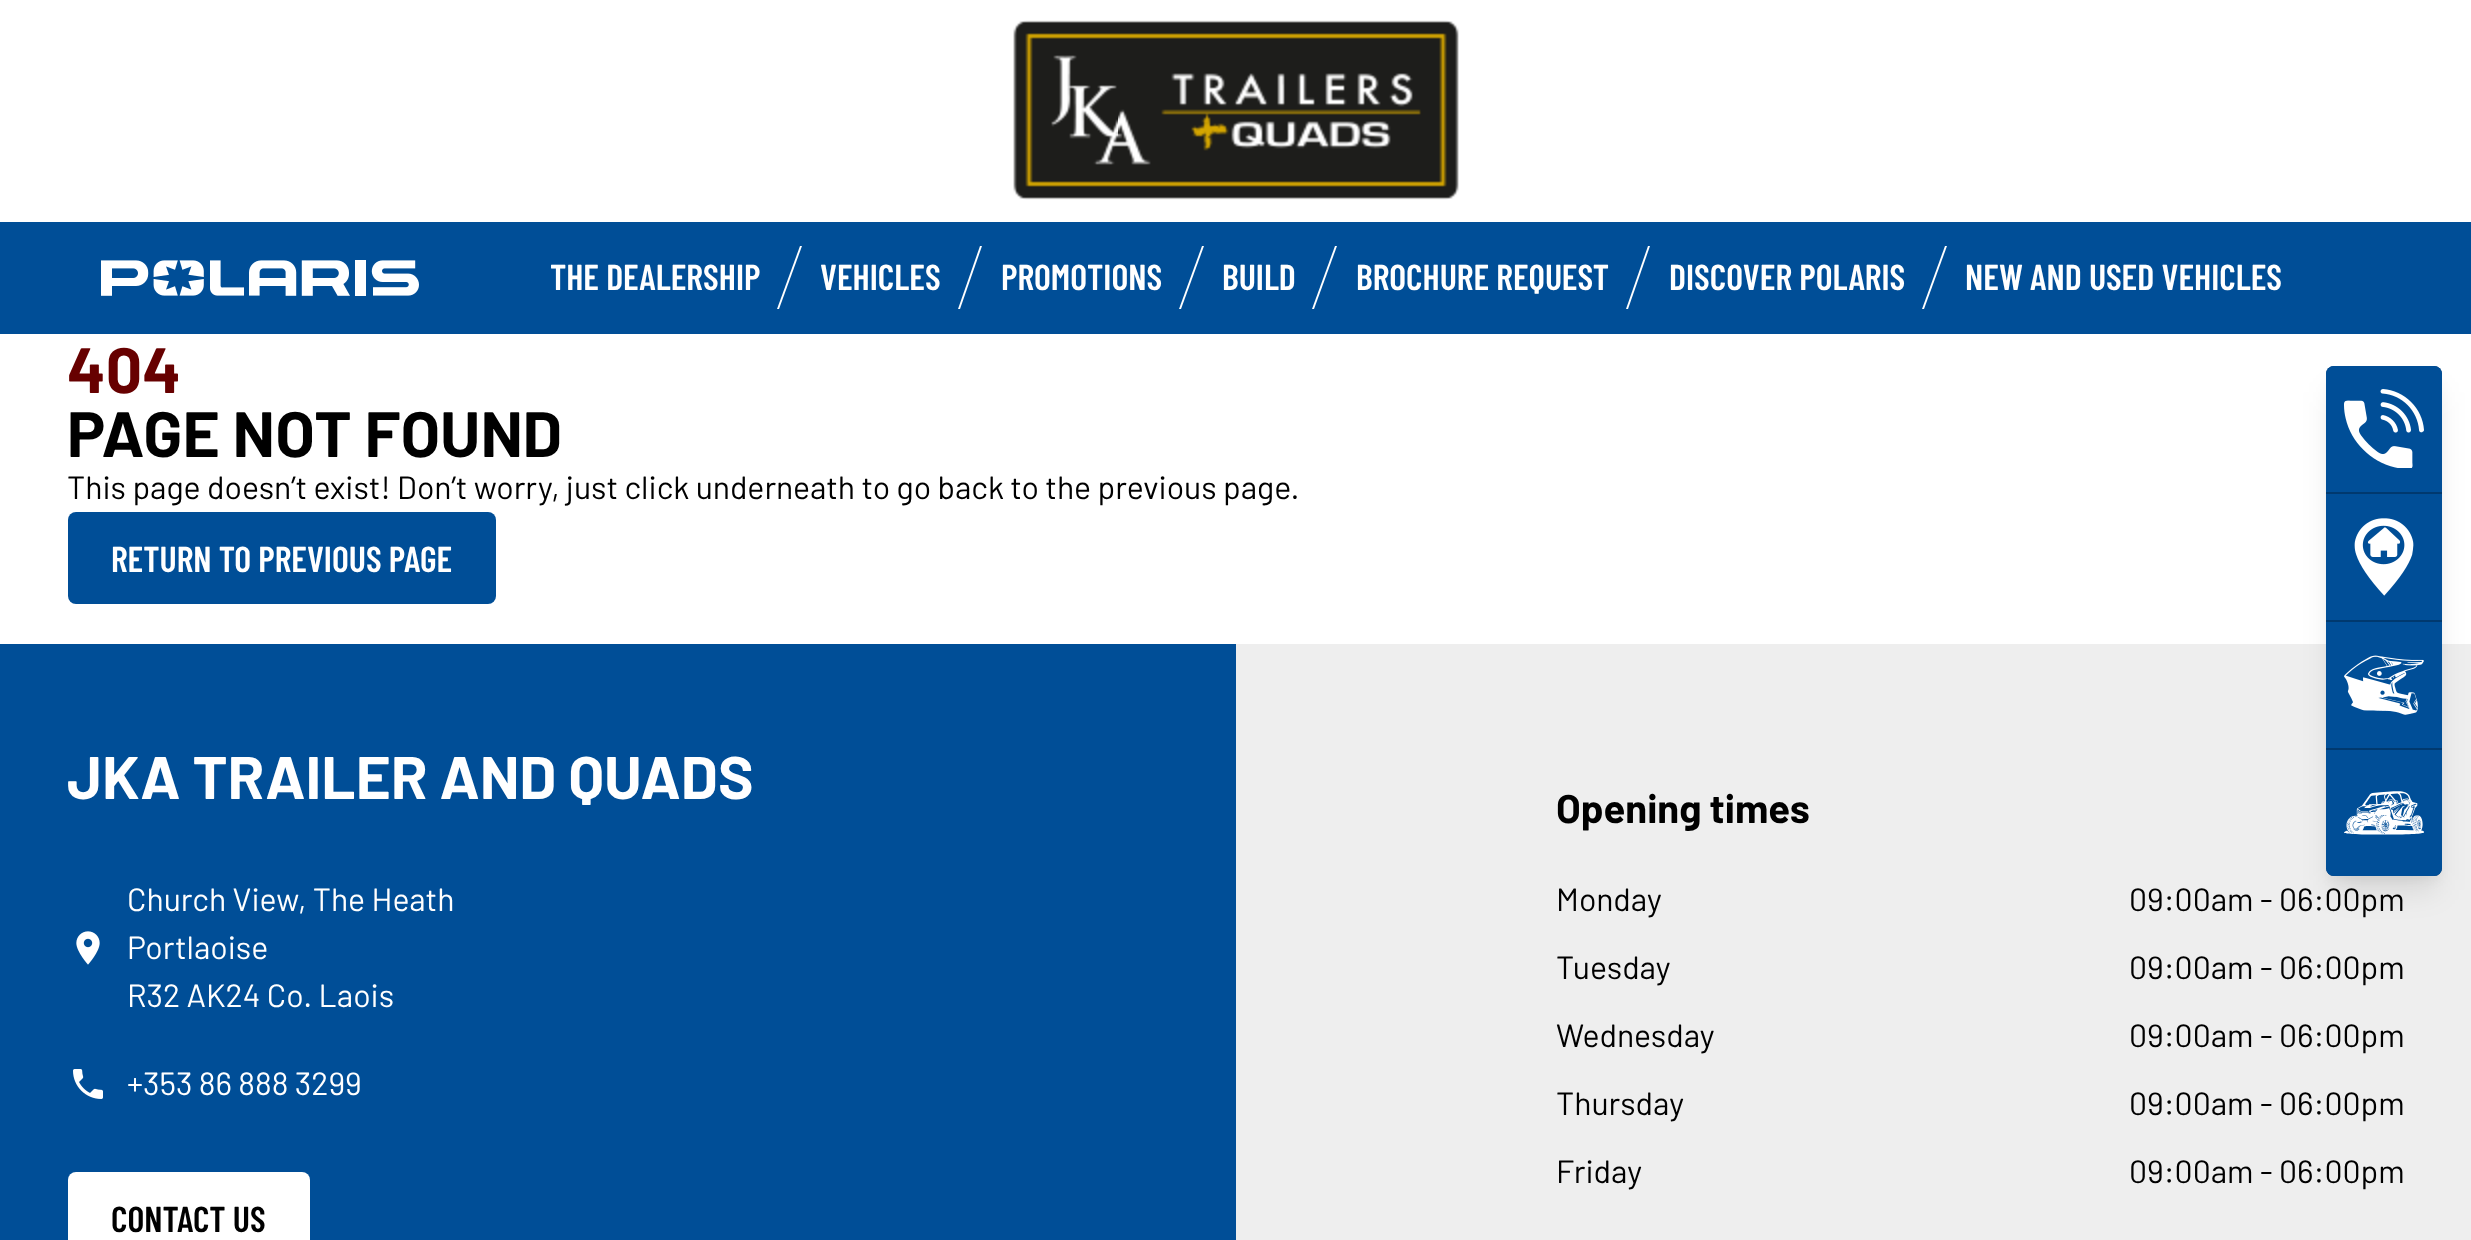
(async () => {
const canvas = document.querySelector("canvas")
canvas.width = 2471
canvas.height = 1240
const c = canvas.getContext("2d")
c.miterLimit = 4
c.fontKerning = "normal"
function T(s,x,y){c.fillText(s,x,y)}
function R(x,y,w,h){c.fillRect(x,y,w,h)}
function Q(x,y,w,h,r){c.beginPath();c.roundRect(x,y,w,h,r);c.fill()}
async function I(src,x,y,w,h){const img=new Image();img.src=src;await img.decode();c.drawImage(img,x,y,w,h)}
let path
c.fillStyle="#fff"
R(0,0,2471,1240)
await I("1.png",1013,20,446,180)
c.fillStyle="#004e97"
R(0,222,2471,112)
await I("2.png",101,260,318,36)
c.font="600 36px Barlow Condensed"
c.fillStyle="#fff"
T("THE DEALERSHIP",550,290)
path = new Path2D("M800 246h2l-23 63h-2z")
c.fill(path)
T("VEHICLES",820,290)
path = new Path2D("M980 246h2l-22 63h-2z")
c.fill(path)
T("PROMOTIONS",1001,290)
path = new Path2D("M1202 246h2l-23 63h-2z")
c.fill(path)
T("BUILD",1222,290)
path = new Path2D("M1335 246h2l-23 63h-2z")
c.fill(path)
T("BROCHURE REQUEST",1356,290)
path = new Path2D("M1648 246h2l-22 63h-2z")
c.fill(path)
T("DISCOVER POLARIS",1669,290)
path = new Path2D("M1945 246h2l-23 63h-2z")
c.fill(path)
T("NEW AND USED VEHICLES",1965,290)
c.font="bold 64px Barlow"
c.fillStyle="#670000"
T("404",67,393)
c.fillStyle="#000"
T("PAGE NOT FOUND",67,457)
c.font="32px Barlow"
T("This page doesn’t exist! Don’t worry, just click underneath to go back to the previous page.",67,499)
c.fillStyle="#004e97"
Q(68,512,428,92,8)
c.font="600 36px Barlow Condensed"
c.fillStyle="#fff"
T("RETURN TO PREVIOUS PAGE",111,572)
c.fillStyle="#eee"
R(1236,644,1235,596)
c.fillStyle="#0000000d"
c.filter="blur(6px)"
c.beginPath()
c.roundRect(2330,378,108,502,4)
c.fill()
c.filter="none"
c.fillStyle="#0000001a"
c.filter="blur(15px)"
c.beginPath()
c.roundRect(2332,392,104,498,2)
c.fill()
c.filter="none"
c.fillStyle="#00396f"
Q(2326,366,116,510,8)
c.fillStyle="#004e97"
c.beginPath()
c.roundRect(2326,366,116,126,[8,8,0,0])
c.fill()
await I("3.png",2344,389,80,79)
R(2326,494,116,126)
await I("4.png",2354,518,60,78)
R(2326,622,116,126)
await I("5.png",2344,655,80,60)
c.beginPath()
c.roundRect(2326,750,116,126,[0,0,8,8])
c.fill()
await I("6.png",2344,791,80,44)
R(0,644,1236,596)
c.font="bold 60px Barlow"
c.fillStyle="#fff"
T("JKA TRAILER AND QUADS",67,799)
await I("7.png",76,931,24,34)
c.font="32px Barlow"
T("Church View, The Heath",127,911)
T("Portlaoise",127,959)
T("R32 AK24 Co. Laois",127,1007)
await I("8.png",73,1069,30,30)
T("+353 86 888 3299",127,1095)
Q(68,1172,242,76,8)
c.font="600 36px Barlow Condensed"
c.fillStyle="#000"
T("CONTACT US",111,1232)
c.font="bold 40px Barlow"
T("Opening times",1556,823)
c.font="32px Barlow"
T("Monday",1556,911)
T("09:00am - 06:00pm",2129,911)
T("Tuesday",1556,979)
T("09:00am - 06:00pm",2129,979)
T("Wednesday",1556,1047)
T("09:00am - 06:00pm",2129,1047)
T("Thursday",1556,1115)
T("09:00am - 06:00pm",2129,1115)
T("Friday",1556,1183)
T("09:00am - 06:00pm",2129,1183)
})()
